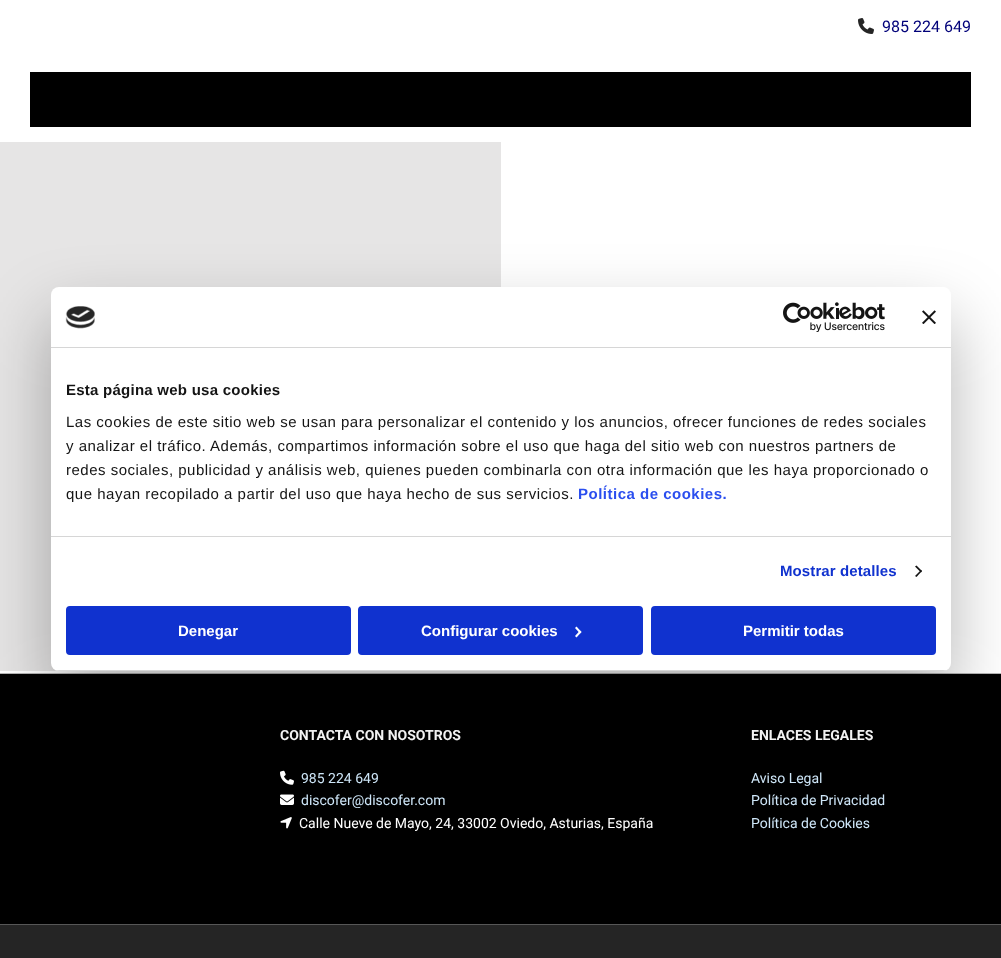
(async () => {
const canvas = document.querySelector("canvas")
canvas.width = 1001
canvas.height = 958
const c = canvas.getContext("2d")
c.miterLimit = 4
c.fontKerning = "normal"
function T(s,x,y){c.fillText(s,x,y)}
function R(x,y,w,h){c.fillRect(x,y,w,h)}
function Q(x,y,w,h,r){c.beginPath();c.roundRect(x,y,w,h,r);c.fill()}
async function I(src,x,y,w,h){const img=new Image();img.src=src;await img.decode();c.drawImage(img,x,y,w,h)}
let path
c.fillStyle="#252525"
R(0,0,1001,958)
c.fillStyle="#fff"
R(0,0,1001,142)
await I("1.png",858,18,16,16)
c.font="16px Roboto"
c.fillStyle="#010179"
T("985 224 649",882,32)
c.fillStyle="#000"
R(30,72,941,55)
c.fillStyle="#fff"
R(501,142,500,529)
R(0,671,1001,2)
c.fillStyle="#e6e5e5"
R(0,142,501,529)
c.fillStyle="#000"
R(0,674,1001,250)
c.fillStyle="#b6b6b6"
R(0,673,1001,1)
c.font="bold 14px Roboto"
c.fillStyle="#fff"
T("CONTACTA CON NOSOTROS",280,740)
await I("2.png",280,770,14,15)
c.font="14px Roboto"
c.fillStyle="#cee6f8"
T("985 224 649",301,783)
await I("3.png",280,794,14,11)
T("discofer@discofer.com",301,805)
await I("4.png",280,817,12,12)
c.fillStyle="#fff"
T("Calle Nueve de Mayo, 24, 33002 Oviedo, Asturias, España",299,828)
c.font="bold 14px Roboto"
T("ENLACES LEGALES",751,740)
c.font="14px Roboto"
c.fillStyle="#cee6f8"
T("Aviso Legal",751,783)
T("Política de Privacidad",751,805)
T("Política de Cookies",751,828)
c.fillStyle="#575757"
R(0,924,1001,1)
c.fillStyle="#0000004d"
c.filter="blur(34px)"
c.beginPath()
c.roundRect(51,319,900,384,8)
c.fill()
c.filter="none"
c.fillStyle="#fff"
Q(51,287,900,384,8)
c.fillStyle="#d6d6d6"
R(51,347,900,1)
await I("5.png",65,306,30,23)
await I("6.png",783,302,102,30)
await I("7.png",922,310,14,14)
R(51,536,900,1)
c.letterSpacing="0.25px"
c.font="bold 15px Liberation Sans"
c.fillStyle="#141414"
T("Esta página web usa cookies",66,395)
c.letterSpacing="0.5px"
c.font="15px Liberation Sans"
T("Las cookies de este sitio web se usan para personalizar el contenido y los anuncios, ofrecer funciones de redes sociales",66,427)
T("y analizar el tráfico. Además, compartimos información sobre el uso que haga del sitio web con nuestros partners de",66,451)
T("redes sociales, publicidad y análisis web, quienes pueden combinarla con otra información que les haya proporcionado o",66,475)
T("que hayan recopilado a partir del uso que haya hecho de sus servicios.",66,499)
c.font="bold 15px Liberation Sans"
c.fillStyle="#2a4eef"
T("Política de cookies.",578,499)
c.letterSpacing="0.1px"
c.fillStyle="#1032cf"
T("Mostrar detalles",780,576)
c.fillStyle="#141414"
path = new Path2D("M916.5 565.5l5.5 5.5l-1 1.5l-6-6z")
c.fill(path)
path = new Path2D("M921 570l1 1l-5.5 6l-1.5-1z")
c.fill(path)
c.save()
c.beginPath()
c.roundRect(51,287,900,384,8)
c.clip()
c.fillStyle="#d6d6d6"
R(51,670,900,1)
c.restore()
c.fillStyle="#1032cf"
c.beginPath()
c.roundRect(67,607,283,47,3)
c.fill()
c.strokeStyle="#1032cf"
c.lineWidth=2
c.stroke()
c.letterSpacing="0px"
c.fillStyle="#fff"
T("Denegar",178,636)
c.fillStyle="#1032cf"
c.beginPath()
c.roundRect(359,607,283,47,3)
c.fill()
c.stroke()
c.fillStyle="#fff"
T("Configurar cookies",421,636)
path = new Path2D("M576.5 626.5l5 5.5l-1.5 1.5l-5-5.5z")
c.fill(path)
path = new Path2D("M580 630.5l1.5 1.5l-5 5.5l-1.5-1.5z")
c.fill(path)
c.fillStyle="#1032cf"
c.beginPath()
c.roundRect(652,607,283,47,3)
c.fill()
c.stroke()
c.fillStyle="#fff"
T("Permitir todas",743,636)
})()
